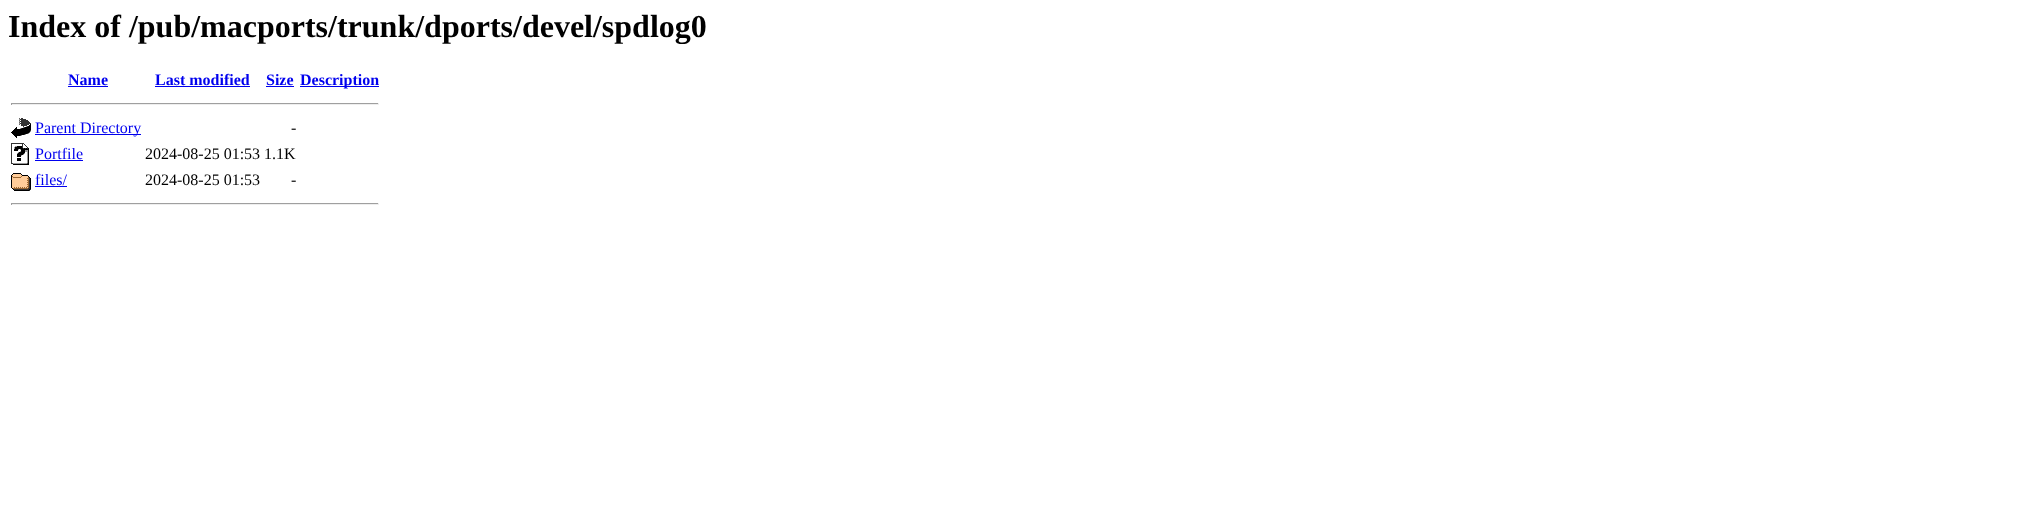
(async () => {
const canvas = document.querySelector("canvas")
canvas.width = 2030
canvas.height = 515
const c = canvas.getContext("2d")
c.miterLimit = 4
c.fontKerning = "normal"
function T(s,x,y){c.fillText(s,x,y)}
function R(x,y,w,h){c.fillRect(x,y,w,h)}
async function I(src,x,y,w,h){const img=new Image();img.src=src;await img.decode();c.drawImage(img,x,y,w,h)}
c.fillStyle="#fff"
R(0,0,2030,515)
c.font="bold 32px Liberation Serif"
c.fillStyle="#000"
T("Index of /pub/macports/trunk/dports/devel/spdlog0",8,37)
c.font="bold 16px Liberation Serif"
c.fillStyle="#00e"
T("Name",68,85)
R(68,86,40,1)
T("Last modified",155,85)
R(155,86,95,1)
T("Size",266,85)
R(266,86,28,1)
R(300,86,79,1)
T("Description",300,85)
c.fillStyle="#9f9f9f"
R(11,103,368,1)
c.fillStyle="#eee"
R(378,103,1,2)
R(11,104,368,1)
c.fillStyle="#9f9f9f"
R(11,103,1,2)
await I("1.png",11,118,20,20)
c.fillStyle="#00e"
R(35,134,106,1)
c.font="16px Liberation Serif"
T("Parent Directory",35,133)
c.fillStyle="#000"
T("-",291,133)
await I("2.png",11,143,18,22)
c.fillStyle="#00e"
T("Portfile",35,159)
R(35,160,48,1)
c.fillStyle="#000"
T("2024-08-25 01:53 1.1K",145,159)
await I("3.png",11,173,20,18)
c.fillStyle="#00e"
T("files/",35,185)
R(35,186,32,1)
c.fillStyle="#000"
T("2024-08-25 01:53",145,185)
T("-",291,185)
c.fillStyle="#9f9f9f"
R(11,203,368,1)
c.fillStyle="#eee"
R(378,203,1,2)
R(11,204,368,1)
c.fillStyle="#9f9f9f"
R(11,203,1,2)
})()
